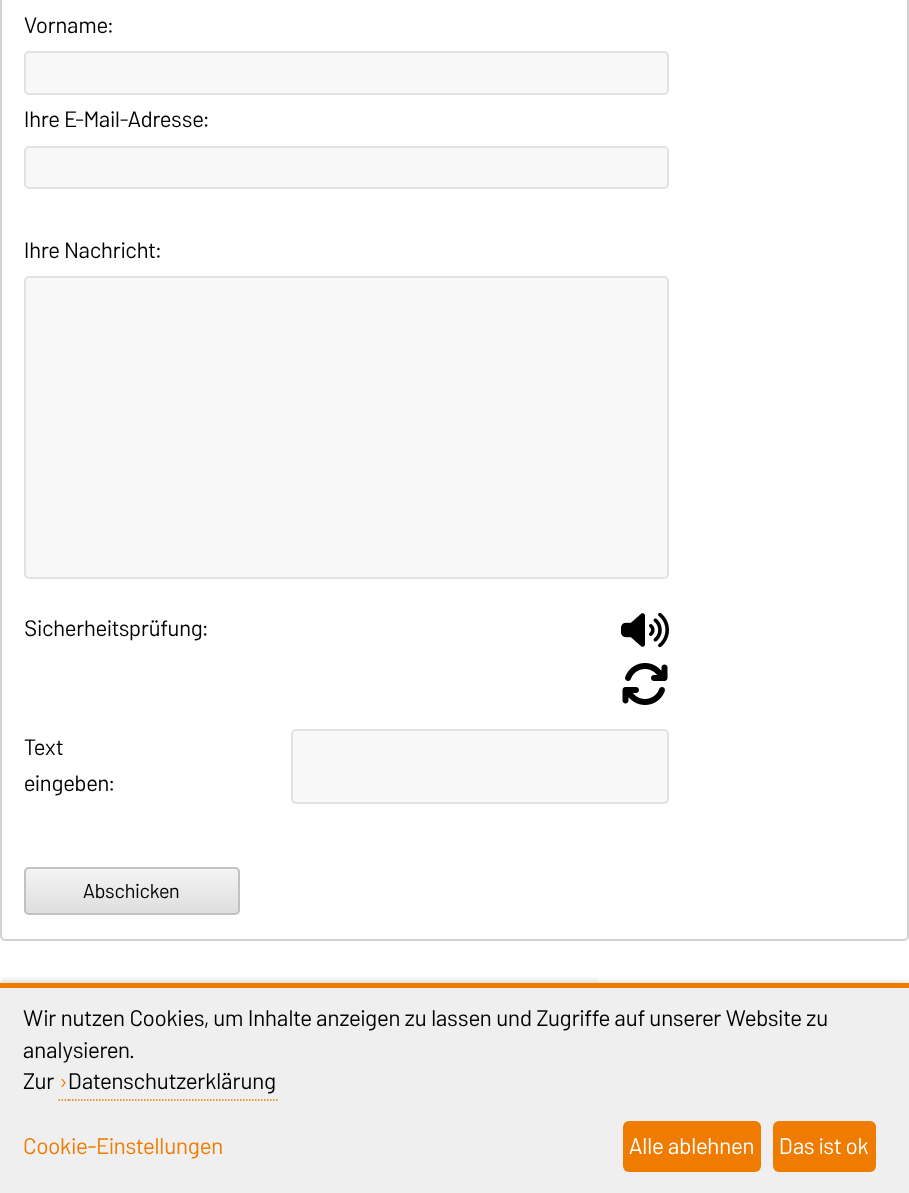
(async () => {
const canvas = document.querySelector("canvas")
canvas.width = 909
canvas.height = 1193
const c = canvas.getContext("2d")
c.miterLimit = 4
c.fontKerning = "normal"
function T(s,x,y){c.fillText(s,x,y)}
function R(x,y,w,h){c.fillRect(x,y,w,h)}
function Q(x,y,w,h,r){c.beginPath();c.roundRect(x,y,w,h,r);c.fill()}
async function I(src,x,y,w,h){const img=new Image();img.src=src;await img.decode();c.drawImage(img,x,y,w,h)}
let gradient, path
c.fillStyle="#fff"
R(0,0,909,1193)
c.beginPath()
c.roundRect(1,-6,907,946,4)
c.strokeStyle="#cfd3d6"
c.lineWidth=2
c.stroke()
c.font="22.25px Barlow"
c.fillStyle="#000"
T("Vorname:",24,33)
c.fillStyle="#f8f8f8"
c.beginPath()
c.roundRect(25,52,643,42,4)
c.fill()
c.strokeStyle="#e0e2e3"
c.stroke()
c.fillStyle="#000"
T("Ihre E-Mail-Adresse:",24,127)
c.fillStyle="#f8f8f8"
c.beginPath()
c.roundRect(25,147,643,41,4)
c.fill()
c.stroke()
c.fillStyle="#000"
T("Ihre Nachricht:",24,258)
c.fillStyle="#f8f8f8"
c.beginPath()
c.roundRect(25,277,643,301,4)
c.fill()
c.stroke()
c.fillStyle="#000"
T("Sicherheitsprüfung:",24,636)
await I("1.png",621,612,48,36)
await I("2.png",622,663,46,42)
T("Text",24,755)
T("eingeben:",24,791)
c.fillStyle="#f8f8f8"
c.beginPath()
c.roundRect(292,730,376,73,4)
c.fill()
c.stroke()
c.save()
c.beginPath()
c.roundRect(24,867,216,48,5)
c.clip()
gradient = c.createLinearGradient(132,869,132,914)
gradient.addColorStop(0,"#f4f4f4")
gradient.addColorStop(1,"#dedede")
c.fillStyle = gradient
R(24,869,216,45)
c.restore()
c.beginPath()
c.roundRect(25,868,214,46,4)
c.strokeStyle="#c0c2c3"
c.stroke()
c.font="20px Barlow"
c.fillStyle="#000"
T("Abschicken",83,898)
c.fillStyle="#f8f8f8"
c.beginPath()
c.roundRect(0,977,600,60,[8,8,0,0])
c.fill()
c.fillStyle="#43475545"
c.filter="blur(3px)"
c.beginPath()
c.rect(0,983,909,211)
c.fill()
c.filter="none"
c.fillStyle="#efefef"
R(0,988,909,205)
c.fillStyle="#ef7c00"
R(0,983,909,5)
c.font="22.5px Barlow"
c.fillStyle="#000"
T("Wir nutzen Cookies, um Inhalte anzeigen zu lassen und Zugriffe auf unserer Website zu",23,1026)
T("analysieren.",23,1058)
T("Zur",23,1089)
c.font="22px Barlow"
c.fillStyle="#ef7c00"
T("›",60,1089)
path = new Path2D("M58.5 1100h1.5m1.5 0h1.5m1.5 0h1.5m1.5 0h1.5")
c.strokeStyle="#ef7c00"
c.lineWidth=1.5
c.stroke(path)
c.font="22.5px Barlow"
c.fillStyle="#000"
T("Datenschutzerklärung",68,1089)
path = new Path2D("M69 1100h210")
c.setLineDash([1.5,1.5])
c.stroke(path)
c.fillStyle="#ef7c00"
T("Cookie-Einstellungen",23,1154)
Q(623,1121,138,51,6)
c.fillStyle="#fff"
T("Alle ablehnen",629,1154)
c.fillStyle="#ef7c00"
Q(773,1121,103,51,6)
c.fillStyle="#fff"
T("Das ist ok",779,1154)
})()
